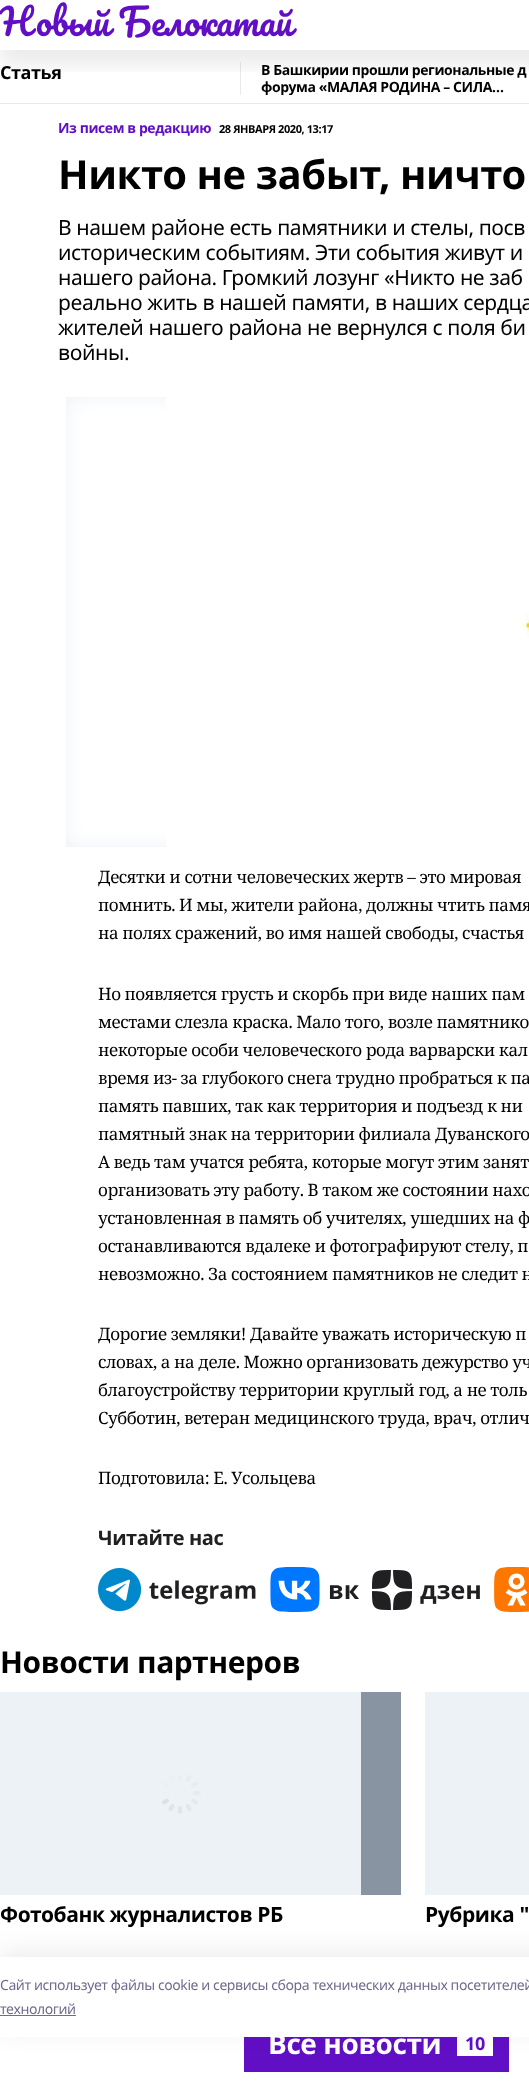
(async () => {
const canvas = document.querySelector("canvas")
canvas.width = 529
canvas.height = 2092
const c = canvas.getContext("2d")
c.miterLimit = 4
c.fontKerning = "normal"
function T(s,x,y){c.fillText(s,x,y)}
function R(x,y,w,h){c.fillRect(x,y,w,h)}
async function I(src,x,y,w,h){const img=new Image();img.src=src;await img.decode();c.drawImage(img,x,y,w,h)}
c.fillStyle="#fff"
R(0,0,529,2092)
c.fillStyle="#eaeaea"
R(240,62,1,33)
c.save()
c.beginPath()
c.rect(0,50,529,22)
c.clip()
c.fillStyle="#00000014"
c.filter="blur(10px)"
c.beginPath()
c.rect(0,15,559,50)
c.fill()
c.filter="none"
c.restore()
c.letterSpacing="-0.42px"
c.font="36px Pacifico"
c.fillStyle="#610fc5"
T("Новый Белокатай",0,36)
c.fillStyle="#eaeaea"
R(0,103,529,1)
c.font="bold 18px Noto Sans"
c.fillStyle="#000"
T("Статья",0,79)
c.font="bold 14px Noto Sans"
T("В Башкирии прошли региональные д",261,75)
c.save()
c.beginPath()
c.rect(241,62,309,33)
c.clip()
T("форума «МАЛАЯ РОДИНА – СИЛА…",261,92)
c.restore()
c.fillStyle="#610fc5"
T("Из писем в редакцию",58,133)
c.font="bold 11px Noto Sans"
c.fillStyle="#000"
T("28 ЯНВАРЯ 2020, 13:17",219,133)
c.font="bold 40px Noto Sans"
T("Никто не забыт, ничто",58,189)
c.font="21px Noto Sans"
T("В нашем районе есть памятники и стелы, посв",58,235)
T("историческим событиям. Эти события живут и",58,260)
T("нашего района. Громкий лозунг «Никто не заб",58,285)
T("реально жить в нашей памяти, в наших сердца",58,310)
T("жителей нашего района не вернулся с поля би",58,335)
T("войны.",58,360)
c.fillStyle="#edf2f7"
R(66,397,100,450)
await I("1.png",66,397,100,450)
await I("2.png",166,397,363,450)
c.font="17px Noto Serif"
c.fillStyle="#000"
T("Десятки и сотни человеческих жертв – это мировая",98,883)
T("помнить. И мы, жители района, должны чтить памя",98,911)
T("на полях сражений, во имя нашей свободы, счастья",98,939)
T("Но появляется грусть и скорбь при виде наших пам",98,1000)
T("местами слезла краска. Мало того, возле памятнико",98,1028)
T("некоторые особи человеческого рода варварски кал",98,1056)
T("время из- за глубокого снега трудно пробраться к па",98,1084)
T("память павших, так как территория и подъезд к ни",98,1112)
T("памятный знак на территории филиала Дуванского",98,1140)
T("А ведь там учатся ребята, которые могут этим занят",98,1168)
T("организовать эту работу. В таком же состоянии нахо",98,1196)
T("установленная в память об учителях, ушедших на ф",98,1224)
T("останавливаются вдалеке и фотографируют стелу, п",98,1252)
T("невозможно. За состоянием памятников не следит н",98,1280)
T("Дорогие земляки! Давайте уважать историческую п",98,1340)
T("словах, а на деле. Можно организовать дежурство уч",98,1368)
T("благоустройству территории круглый год, а не толь",98,1396)
T("Субботин, ветеран медицинского труда, врач, отлич",98,1424)
T("Подготовила: Е. Усольцева",98,1484)
c.font="bold 20px Noto Sans"
c.fillStyle="#202022"
T("Читайте нас",98,1545)
await I("3.png",98,1568,158,43)
await I("4.png",270,1567,89,45)
await I("5.png",372,1570,108,40)
await I("6.png",494,1567,35,45)
c.font="bold 30px Noto Sans"
c.fillStyle="#000"
T("Новости партнеров",0,1673)
c.fillStyle="#8894a2"
R(361,1692,40,203)
c.fillStyle="#edf2f7"
R(0,1692,361,203)
await I("7.png",162,1775,39,39)
c.font="bold 21px Noto Sans"
c.fillStyle="#000"
T("Фотобанк журналистов РБ",0,1922)
c.fillStyle="#edf2f7"
R(425,1692,104,203)
c.fillStyle="#000"
T("Рубрика \"",425,1922)
c.fillStyle="#610fc5"
R(244,2037,265,35)
c.font="bold 28px Noto Sans"
c.fillStyle="#fff"
T("Все новости",268,2054)
R(457,2037,36,19)
c.font="bold 18px Noto Sans"
c.fillStyle="#610fc5"
T("10",465,2050)
c.fillStyle="#14142b14"
c.filter="blur(11.5px)"
c.beginPath()
c.rect(0,1951,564,80)
c.fill()
c.filter="none"
c.fillStyle="#fff"
R(0,1957,529,80)
c.font="14px Noto Sans"
c.fillStyle="#6f6c90"
T("Cайт использует файлы cookie и сервисы сбора технических данных посетителей",0,1990)
T("технологий",0,2014)
R(0,2015,76,1)
})()
